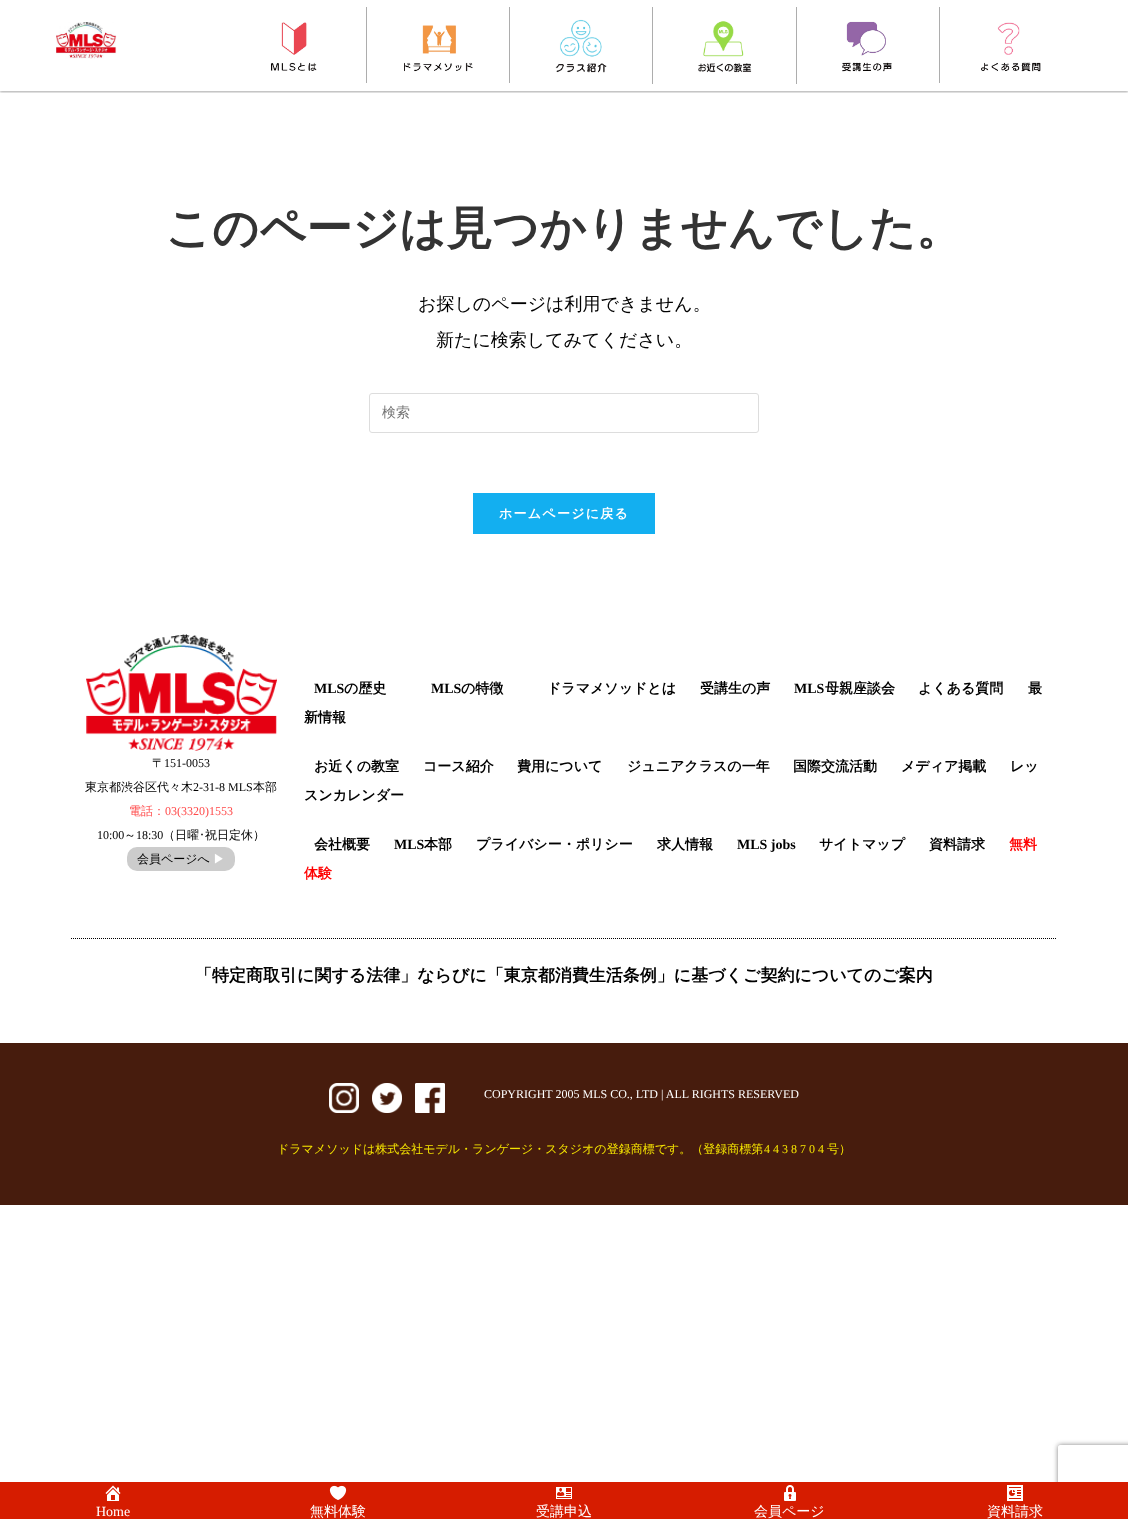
(async () => {
const canvas = document.querySelector("canvas")
canvas.width = 1128
canvas.height = 1519
const c = canvas.getContext("2d")
c.miterLimit = 4
c.fontKerning = "normal"
function T(s,x,y){c.fillText(s,x,y)}
function R(x,y,w,h){c.fillRect(x,y,w,h)}
async function I(src,x,y,w,h){const img=new Image();img.src=src;await img.decode();c.drawImage(img,x,y,w,h)}
let path
c.fillStyle="#fff"
R(0,0,1128,1519)
c.save()
c.beginPath()
c.rect(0,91,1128,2)
c.clip()
c.fillStyle="#0000003d"
c.filter="blur(1px)"
c.beginPath()
c.rect(0,1,1128,91)
c.fill()
c.filter="none"
c.fillStyle="#0000001f"
c.filter="blur(1.5px)"
c.beginPath()
c.rect(0,1,1128,91)
c.fill()
c.filter="none"
c.restore()
await I("1.png",56,22,61,37)
c.fillStyle="#adadad"
R(366,7,1,76)
await I("2.png",271,22,46,49)
R(509,7,1,76)
await I("3.png",404,25,69,47)
R(652,7,1,77)
await I("4.png",555,19,52,54)
R(796,7,1,77)
await I("5.png",698,21,54,52)
R(939,7,1,76)
await I("6.png",842,21,50,51)
await I("7.png",981,22,60,50)
c.font="bold 46px WenQuanYi Zen Hei"
c.fillStyle="#333"
T("このページは見つかりませんでした。",165,244)
c.font="500 18px WenQuanYi Zen Hei"
c.fillStyle="#000"
T("お探しのページは利用できません。",418,310)
T("新たに検索してみてください。",436,346)
c.beginPath()
c.roundRect(369.5,393.5,389,39,2.5)
c.strokeStyle="#ddd"
c.stroke()
c.font="500 14px WenQuanYi Zen Hei"
c.fillStyle="#757575"
T("検索",382,417)
c.fillStyle="#13aff0"
R(473,493,182,41)
c.letterSpacing="1.25px"
c.font="bold 13px WenQuanYi Zen Hei"
c.fillStyle="#fff"
T("ホームページに戻る",499,518)
await I("8.png",86,634,191,117)
c.letterSpacing="0px"
c.font="500 12px WenQuanYi Zen Hei"
c.fillStyle="#000"
T("〒",152,767)
c.font="12px Liberation Serif"
T("151-0053",164,767)
c.font="500 12px WenQuanYi Zen Hei"
T("東京都渋谷区代々木",85,791)
c.font="12px Liberation Serif"
T("2-31-8 MLS",193,791)
c.font="500 12px WenQuanYi Zen Hei"
T("本部",253,791)
c.fillStyle="#ff4a4a"
T("電話：",129,815)
c.font="12px Liberation Serif"
T("03(3320)1553",165,815)
c.fillStyle="#000"
T("10:00",97,839)
c.font="500 12px WenQuanYi Zen Hei"
T("～",124,839)
c.font="12px Liberation Serif"
T("18:30",136,839)
c.font="500 12px WenQuanYi Zen Hei"
T("（日曜",163,839)
c.font="12px IPAPGothic"
T("･",199,839)
c.font="500 12px WenQuanYi Zen Hei"
T("祝日定休）",205,839)
c.fillStyle="#ccc"
c.beginPath()
c.roundRect(127,847,86,24,[10,0,0,10])
c.fill()
c.fillStyle="#000"
T("会員ページへ",137,863)
c.fillStyle="#ccc"
c.beginPath()
c.roundRect(213,847,22,24,[0,10,10,0])
c.fill()
c.fillStyle="#fff"
T("▶︎",213,863)
c.font="bold 14px Liberation Serif"
c.fillStyle="#000"
T("MLS",314,693)
c.font="bold 14px WenQuanYi Zen Hei"
T("の歴史",344,693)
c.font="bold 14px Liberation Serif"
T("MLS",431,693)
c.font="bold 14px WenQuanYi Zen Hei"
T("の特徴",461,693)
T("ドラマメソッドとは",547,693)
T("受講生の声",700,693)
c.font="bold 14px Liberation Serif"
T("MLS",794,693)
c.font="bold 14px WenQuanYi Zen Hei"
T("母親座談会",825,693)
T("よくある質問",918,693)
T("最",1028,693)
T("新情報",304,722)
T("お近くの教室",314,771)
T("コース紹介",423,771)
T("費用について",517,771)
T("ジュニアクラスの一年",627,771)
T("国際交流活動",793,771)
T("メディア掲載",901,771)
T("レッ",1010,771)
T("スンカレンダー",304,800)
T("会社概要",314,849)
c.font="bold 14px Liberation Serif"
T("MLS",394,849)
c.font="bold 14px WenQuanYi Zen Hei"
T("本部",424,849)
T("プライバシー・ポリシー",476,849)
T("求人情報",657,849)
c.font="bold 14px Liberation Serif"
T("MLS jobs",737,849)
c.font="bold 14px WenQuanYi Zen Hei"
T("サイトマップ",819,849)
T("資料請求",929,849)
c.fillStyle="#f00"
T("無料",1009,849)
T("体験",304,878)
path = new Path2D("M71 938.5h986")
c.strokeStyle="#000"
c.setLineDash([1,1])
c.stroke(path)
c.font="bold 17px WenQuanYi Zen Hei"
c.fillStyle="#000"
T("「特定商取引に関する法律」ならびに「東京都消費生活条例」に基づくご契約についてのご案内",195,981)
c.fillStyle="#471c0d"
R(0,1043,1128,162)
await I("9.png",329,1083,30,30)
await I("10.png",372,1083,30,30)
await I("11.png",415,1083,30,30)
c.font="12px Liberation Serif"
c.fillStyle="#fff"
T("COPYRIGHT 2005 MLS CO., LTD | ALL RIGHTS RESERVED",484,1098)
c.font="500 12px WenQuanYi Zen Hei"
c.fillStyle="#f5e400"
T("ドラマメソッドは株式会社モデル・ランゲージ・スタジオの登録商標です。（登録商標第",277,1153)
c.font="12px Liberation Serif"
T("4 4 3 8 7 0 4",764,1153)
c.font="500 12px WenQuanYi Zen Hei"
T("号）",827,1153)
c.save()
path = new Path2D("M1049 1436h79v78h-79zm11 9h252c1 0 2 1 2 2v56c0 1-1 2-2 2h-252c-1 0-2-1-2-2v-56c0-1 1-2 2-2z")
c.clip(path,"evenodd")
c.fillStyle="#808080"
c.filter="blur(2.5px)"
c.beginPath()
c.roundRect(1058,1445,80,60,2)
c.fill()
c.filter="none"
c.restore()
c.fillStyle="#d61c00"
R(0,1482,1128,37)
await I("12.png",105,1485,16,16)
c.font="14px Liberation Serif"
c.fillStyle="#fff"
T("Home",96,1516)
await I("13.png",329,1485,18,15)
c.font="500 14px WenQuanYi Zen Hei"
T("無料体験",310,1516)
await I("14.png",556,1487,16,12)
T("受講申込",536,1516)
await I("15.png",784,1485,12,16)
T("会員ページ",754,1516)
await I("16.png",1007,1485,16,16)
T("資料請求",987,1516)
})()
